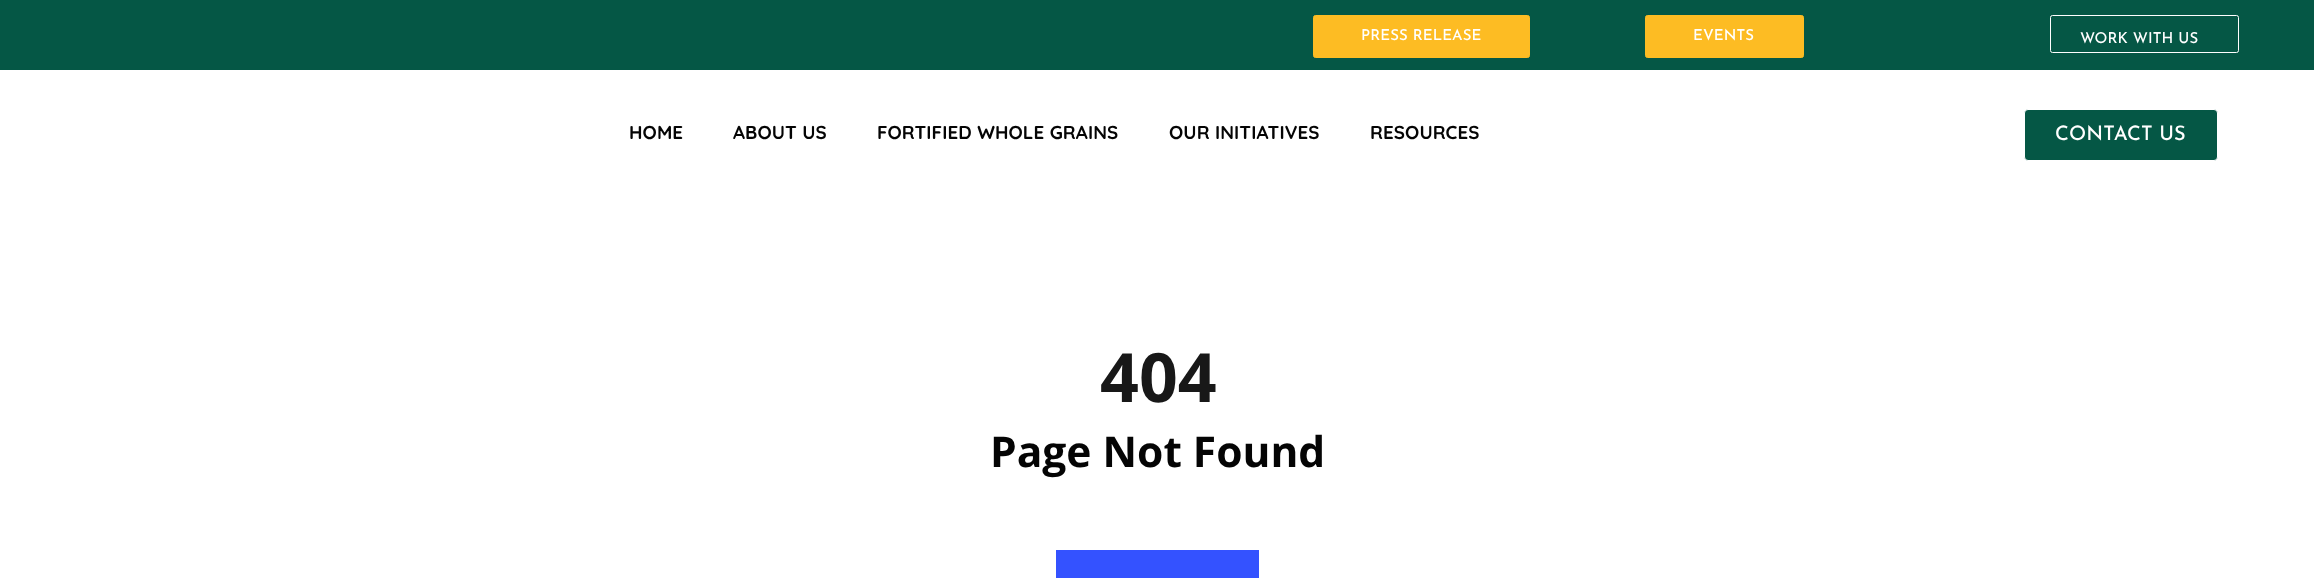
(async () => {
const canvas = document.querySelector("canvas")
canvas.width = 2314
canvas.height = 578
const c = canvas.getContext("2d")
c.miterLimit = 4
c.fontKerning = "normal"
function T(s,x,y){c.fillText(s,x,y)}
function R(x,y,w,h){c.fillRect(x,y,w,h)}
c.fillStyle="#fff"
R(0,0,2314,578)
c.fillStyle="#055745"
R(0,0,2314,70)
c.fillStyle="#fdbc23"
c.beginPath()
c.roundRect(1313.5,15.5,216,42,2)
c.fill()
c.strokeStyle="#fdbc23"
c.stroke()
c.letterSpacing="0.1px"
c.font="500 15px Josefin Sans"
c.fillStyle="#fff"
T("PRESS RELEASE",1361,40)
c.fillStyle="#fdbc23"
c.beginPath()
c.roundRect(1645.5,15.5,158,42,2)
c.fill()
c.stroke()
c.fillStyle="#fff"
T("EVENTS",1693,40)
c.beginPath()
c.roundRect(2050.5,15.5,188,37,2)
c.strokeStyle="#fff"
c.stroke()
T("WORK WITH US",2080,43)
c.font="bold 18.75px Quicksand"
c.fillStyle="#040404"
T("HOME",629,139)
T("ABOUT US",733,139)
T("FORTIFIED WHOLE GRAINS",877,139)
T("OUR INITIATIVES",1169,139)
T("RESOURCES",1370,139)
c.fillStyle="#055745"
c.beginPath()
c.roundRect(2024.5,109.5,193,51,3.5)
c.fill()
c.stroke()
c.font="500 20px Josefin Sans"
c.fillStyle="#fff"
T("CONTACT US",2055,140)
c.letterSpacing="0px"
c.font="bold 68px Open Sans"
c.fillStyle="#181818"
T("404",1100,402)
c.font="bold 42.5px Open Sans"
c.fillStyle="#040404"
T("Page Not Found",990,467)
c.fillStyle="#3452ff"
R(1056,550,203,28)
})()
